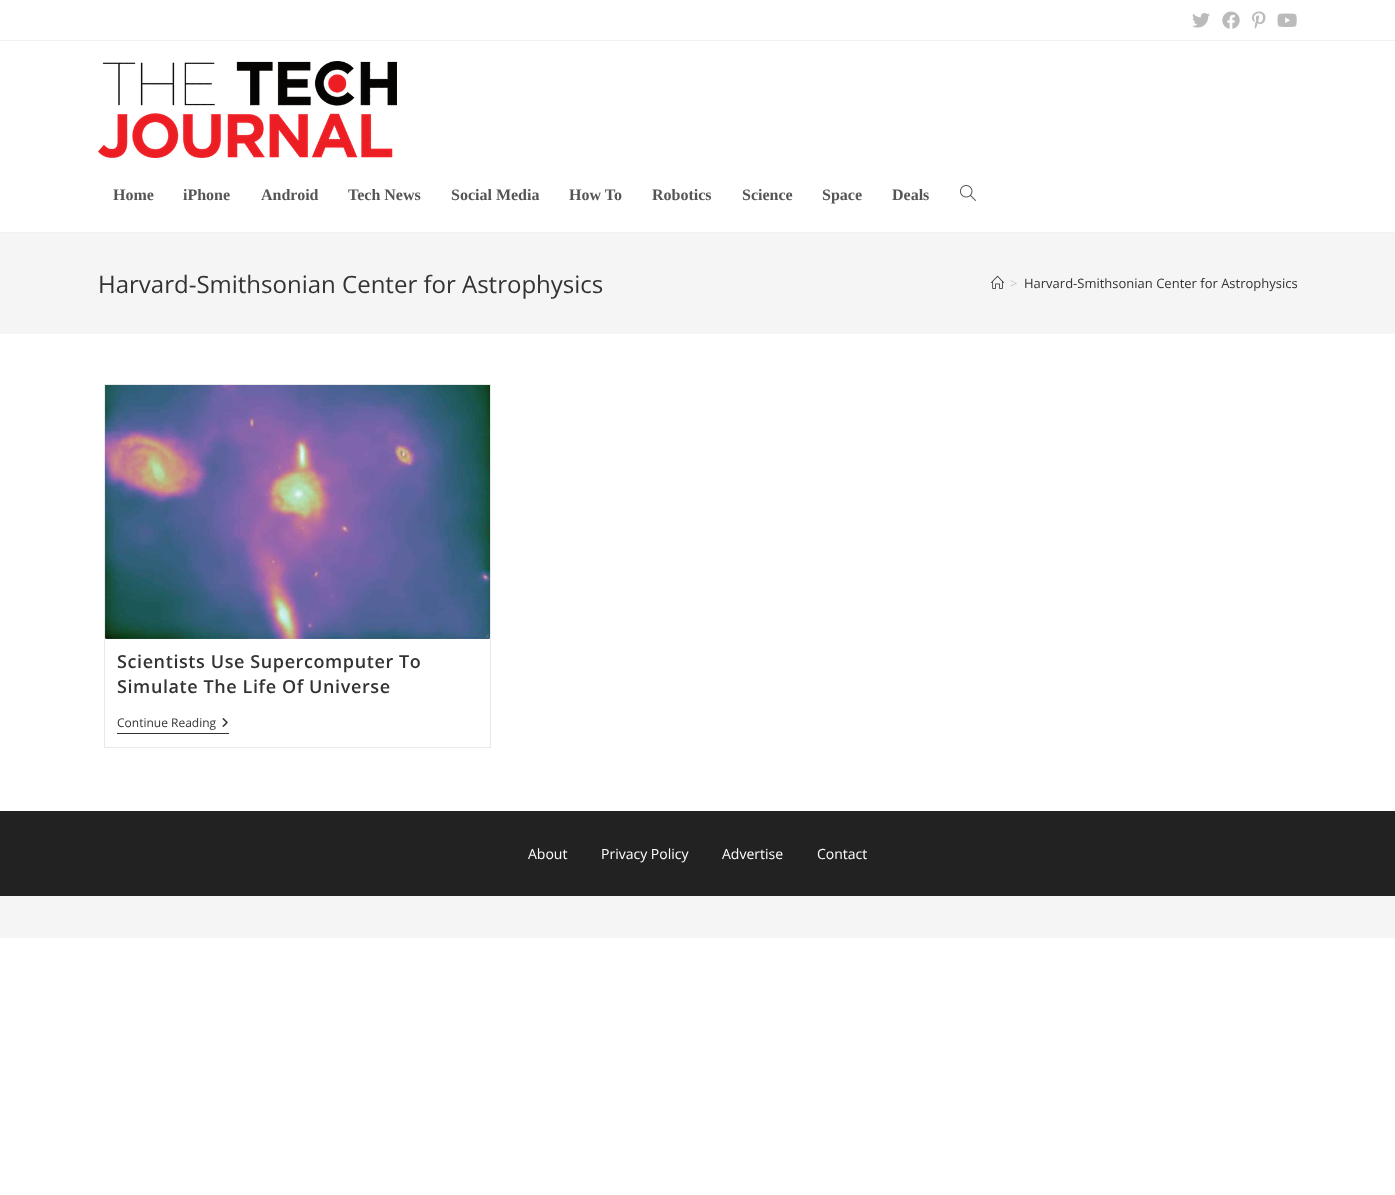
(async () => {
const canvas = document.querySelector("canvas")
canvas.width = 1395
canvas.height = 1195
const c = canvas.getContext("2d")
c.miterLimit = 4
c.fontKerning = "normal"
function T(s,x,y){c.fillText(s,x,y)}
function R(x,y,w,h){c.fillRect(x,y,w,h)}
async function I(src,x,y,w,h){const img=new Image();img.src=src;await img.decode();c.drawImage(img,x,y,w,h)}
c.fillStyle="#fff"
R(0,0,1395,1195)
c.fillStyle="#f1f1f1"
R(0,40,1395,1)
await I("1.png",1192,13,18,15)
await I("2.png",1222,11,18,18)
await I("3.png",1252,11,14,18)
await I("4.png",1277,13,20,14)
R(0,232,1395,1)
await I("5.png",98,61,299,97)
c.font="bold 16px Liberation Serif"
c.fillStyle="#555"
T("Home",113,200)
T("iPhone",183,200)
T("Android",261,200)
T("Tech News",348,200)
T("Social Media",451,200)
T("How To",569,200)
T("Robotics",652,200)
T("Science",742,200)
T("Space",822,200)
T("Deals",892,200)
await I("6.png",960,185,16,16)
c.fillStyle="#f5f5f5"
R(0,233,1395,101)
c.font="24px Open Sans"
c.fillStyle="#333"
T("Harvard-Smithsonian Center for Astrophysics",98,293)
await I("7.png",991,275,13,14)
c.font="13px Open Sans"
c.fillStyle="#c6c6c6"
T(">",1010,288)
c.fillStyle="#333"
T("Harvard-Smithsonian Center for Astrophysics",1024,288)
c.strokeStyle="#e9e9e9"
c.strokeRect(104.5,384.5,386,363)
await I("8.png",105,385,385,254)
c.letterSpacing="0.6px"
c.font="600 18px Open Sans"
T("Scientists Use Supercomputer To",117,668)
T("Simulate The Life Of Universe",117,693)
R(117,733,112,1)
c.letterSpacing="0px"
c.font="12px Open Sans"
T("Continue Reading",117,727)
await I("9.png",222,718,6,9)
c.fillStyle="#222"
R(0,811,1395,85)
c.font="14px Open Sans"
c.fillStyle="#fff"
T("About",528,859)
T("Privacy Policy",601,859)
T("Advertise",722,859)
T("Contact",817,859)
c.fillStyle="#f5f5f5"
R(0,896,1395,42)
})()
